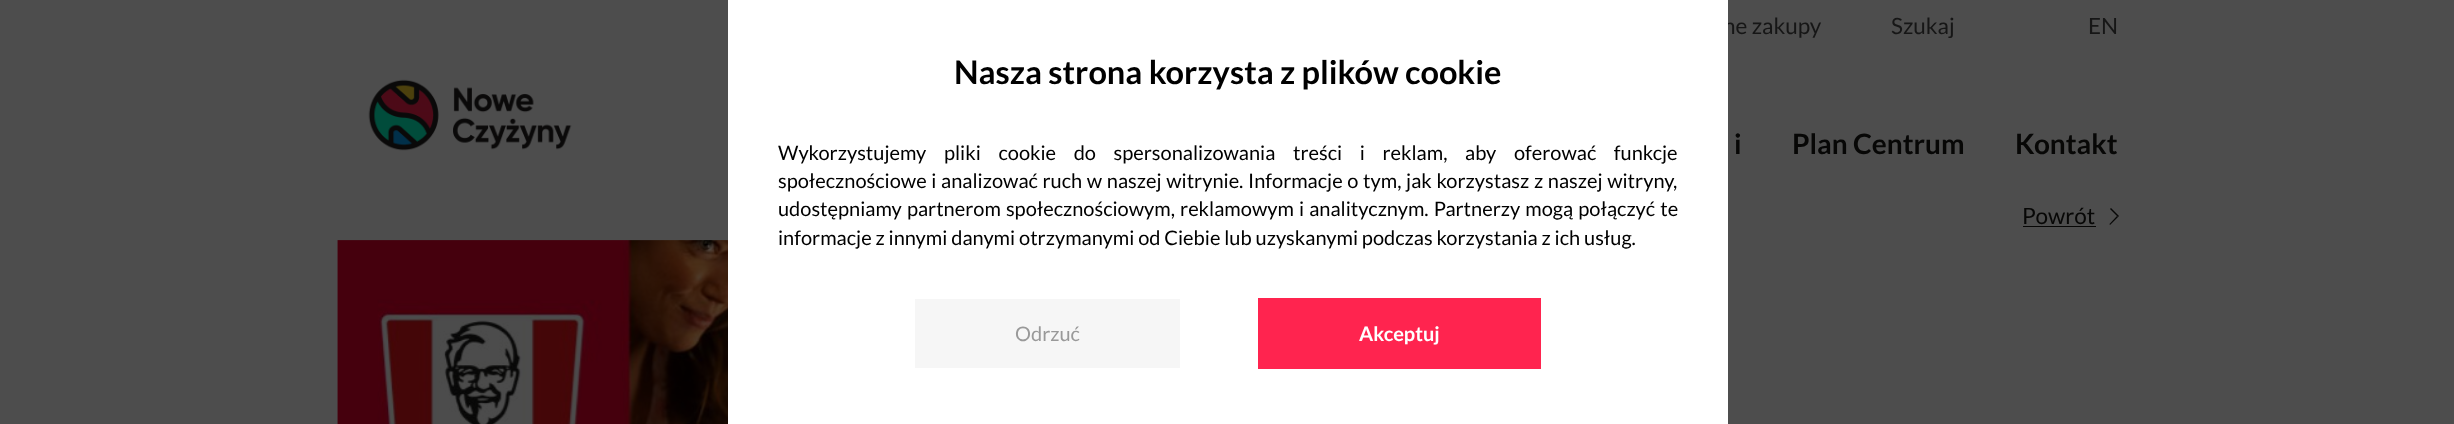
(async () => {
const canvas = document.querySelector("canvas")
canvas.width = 2454
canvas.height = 424
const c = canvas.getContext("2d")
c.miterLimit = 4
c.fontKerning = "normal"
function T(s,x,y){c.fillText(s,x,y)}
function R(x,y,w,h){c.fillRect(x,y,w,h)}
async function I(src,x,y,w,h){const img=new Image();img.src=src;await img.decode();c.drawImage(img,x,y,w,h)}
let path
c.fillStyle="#4d4d4d"
R(0,0,2454,424)
c.font="22.5px Lato"
c.fillStyle="#161616"
T("ne zakupy",1723,34)
c.fillStyle="#fff"
R(728,0,1000,424)
c.font="bold 32.5px Lato"
c.fillStyle="#000"
T("Nasza strona korzysta z plików cookie",954,84)
c.wordSpacing="13.75px"
c.font="20px Lato"
T("Wykorzystujemy pliki cookie do spersonalizowania treści i reklam, aby oferować funkcje",778,160)
c.wordSpacing="0.8px"
T("społecznościowe i analizować ruch w naszej witrynie. Informacje o tym, jak korzystasz z naszej witryny,",778,188)
c.wordSpacing="1.25px"
T("udostępniamy partnerom społecznościowym, reklamowym i analitycznym. Partnerzy mogą połączyć te",778,216)
c.wordSpacing="0px"
T("informacje z innymi danymi otrzymanymi od Ciebie lub uzyskanymi podczas korzystania z ich usług.",778,245)
c.fillStyle="#f6f6f6"
R(915,299,265,69)
c.fillStyle="#999"
T("Odrzuć",1015,341)
c.fillStyle="#ff244f"
c.filter="blur(0.5px)"
c.beginPath()
c.rect(1258,298,283,71)
c.fill()
c.filter="none"
c.font="bold 20px Lato"
c.fillStyle="#fff"
T("Akceptuj",1359,341)
await I("1.png",368,79,204,72)
c.font="22.5px Lato"
c.fillStyle="#161616"
T("Szukaj",1891,34)
T("EN",2088,34)
c.font="bold 28px Lato"
c.fillStyle="#070706"
T("i",1734,154)
T("Plan Centrum",1792,154)
T("Kontakt",2015,154)
c.font="22.5px Lato"
T("Powrót",2022,224)
R(2023,226,73,1)
path = new Path2D("M2111 208l8 8l-1 1l-8-8z")
c.fill(path)
path = new Path2D("M2109.5 224l7.5-8l1 1l-8 8z")
c.fill(path)
await I("2.png",337,240,391,184)
})()
